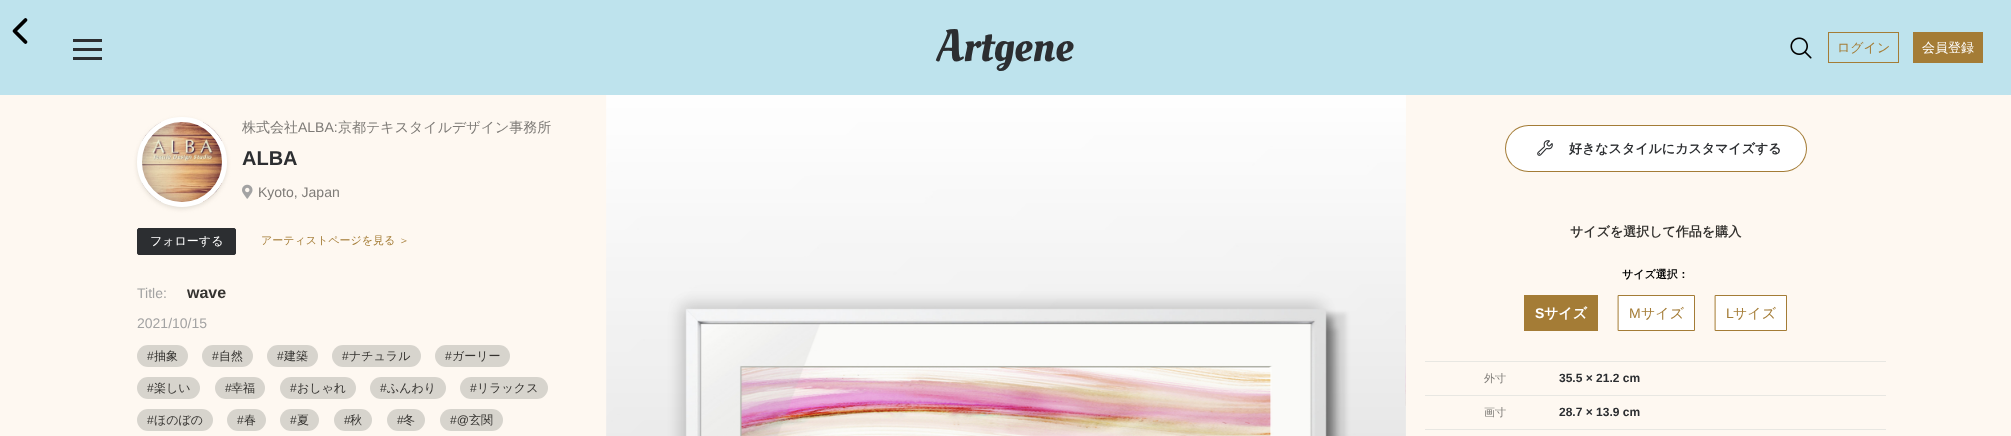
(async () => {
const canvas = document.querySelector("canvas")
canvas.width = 2011
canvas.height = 436
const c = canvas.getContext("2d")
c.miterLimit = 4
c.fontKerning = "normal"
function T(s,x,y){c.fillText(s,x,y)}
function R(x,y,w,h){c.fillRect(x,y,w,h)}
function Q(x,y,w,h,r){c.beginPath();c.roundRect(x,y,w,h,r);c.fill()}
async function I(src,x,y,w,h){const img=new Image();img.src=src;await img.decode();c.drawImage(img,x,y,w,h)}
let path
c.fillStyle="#fef8f1"
R(0,0,2011,436)
c.fillStyle="#bee3ed"
R(0,0,2011,95)
path = new Path2D("M25.5 20l-11 11l11 11")
c.strokeStyle="#000"
c.lineWidth=3.8
c.lineCap="round"
c.lineJoin="round"
c.stroke(path)
c.font="45px Oleo Script"
c.fillStyle="#2c2e31"
T("Artgene",937,61)
R(73,48,29,3)
R(73,39,29,3)
R(73,57,29,3)
await I("1.png",1790,37,22,22)
c.strokeStyle="#a47c36"
c.lineWidth=1
c.lineJoin="miter"
c.strokeRect(1828.5,32.5,70,30)
c.font="500 13px WenQuanYi Zen Hei"
c.fillStyle="#a47c36"
T("ログイン",1837,52)
R(1913,32,70,31)
c.fillStyle="#fff"
T("会員登録",1922,52)
c.fillStyle="#ccc5b980"
c.filter="blur(2px)"
c.beginPath()
c.roundRect(137,119,90,90,45)
c.fill()
c.filter="none"
await I("2.png",142,122,80,80)
c.beginPath()
c.arc(182,162,42.5,0,7)
c.strokeStyle="#fff"
c.lineWidth=5
c.stroke()
c.font="500 14px WenQuanYi Zen Hei"
c.fillStyle="#7e7b77"
T("株式会社",242,132)
c.font="14px Liberation Sans"
T("ALBA:",298,132)
c.font="500 14px WenQuanYi Zen Hei"
T("京都テキスタイルデザイン事務所",338,132)
c.font="bold 20px Liberation Sans"
c.fillStyle="#2c2e31"
T("ALBA",242,165)
await I("3.png",242,184,11,15)
c.font="14px Liberation Sans"
c.fillStyle="#7e7b77"
T("Kyoto, Japan",258,197)
c.fillStyle="#2c2e31"
c.beginPath()
c.roundRect(137.5,228.5,98,26,1.5)
c.fill()
c.strokeStyle="#2c2e31"
c.lineWidth=1
c.stroke()
c.font="500 12px WenQuanYi Zen Hei"
c.fillStyle="#fff"
T("フォローする",150,245)
c.font="500 11px WenQuanYi Zen Hei"
c.fillStyle="#a47c36"
T("アーティストページを見る ＞",261,244)
c.font="14px Liberation Sans"
c.fillStyle="#a3a3a3"
T("Title:",137,298)
c.font="bold 16px Liberation Sans"
c.fillStyle="#353330"
T("wave",187,298)
c.font="14px Liberation Sans"
c.fillStyle="#a3a3a3"
T("2021/10/15",137,328)
c.fillStyle="#d7d4cd"
Q(137,345,51,22,11)
c.font="12px Liberation Sans"
c.fillStyle="#353330"
T("#",147,360)
c.font="500 12px WenQuanYi Zen Hei"
T("抽象",154,360)
c.fillStyle="#d7d4cd"
Q(202,345,51,22,11)
c.font="12px Liberation Sans"
c.fillStyle="#353330"
T("#",212,360)
c.font="500 12px WenQuanYi Zen Hei"
T("自然",219,360)
c.fillStyle="#d7d4cd"
Q(267,345,51,22,11)
c.font="12px Liberation Sans"
c.fillStyle="#353330"
T("#",277,360)
c.font="500 12px WenQuanYi Zen Hei"
T("建築",284,360)
c.fillStyle="#d7d4cd"
Q(332,345,89,22,11)
c.font="12px Liberation Sans"
c.fillStyle="#353330"
T("#",342,360)
c.font="500 12px WenQuanYi Zen Hei"
T("ナチュラル",349,360)
c.fillStyle="#d7d4cd"
Q(435,345,75,22,11)
c.font="12px Liberation Sans"
c.fillStyle="#353330"
T("#",445,360)
c.font="500 12px WenQuanYi Zen Hei"
T("ガーリー",452,360)
c.fillStyle="#d7d4cd"
Q(137,377,63,22,11)
c.font="12px Liberation Sans"
c.fillStyle="#353330"
T("#",147,392)
c.font="500 12px WenQuanYi Zen Hei"
T("楽しい",154,392)
c.fillStyle="#d7d4cd"
Q(215,377,50,22,11)
c.font="12px Liberation Sans"
c.fillStyle="#353330"
T("#",225,392)
c.font="500 12px WenQuanYi Zen Hei"
T("幸福",231,392)
c.fillStyle="#d7d4cd"
Q(280,377,76,22,11)
c.font="12px Liberation Sans"
c.fillStyle="#353330"
T("#",290,392)
c.font="500 12px WenQuanYi Zen Hei"
T("おしゃれ",297,392)
c.fillStyle="#d7d4cd"
Q(370,377,76,22,11)
c.font="12px Liberation Sans"
c.fillStyle="#353330"
T("#",380,392)
c.font="500 12px WenQuanYi Zen Hei"
T("ふんわり",387,392)
c.fillStyle="#d7d4cd"
Q(460,377,88,22,11)
c.font="12px Liberation Sans"
c.fillStyle="#353330"
T("#",470,392)
c.font="500 12px WenQuanYi Zen Hei"
T("リラックス",477,392)
c.fillStyle="#d7d4cd"
Q(137,409,76,22,11)
c.font="12px Liberation Sans"
c.fillStyle="#353330"
T("#",147,424)
c.font="500 12px WenQuanYi Zen Hei"
T("ほのぼの",154,424)
c.fillStyle="#d7d4cd"
Q(227,409,39,22,11)
c.font="12px Liberation Sans"
c.fillStyle="#353330"
T("#",237,424)
c.font="500 12px WenQuanYi Zen Hei"
T("春",244,424)
c.fillStyle="#d7d4cd"
Q(280,409,39,22,11)
c.font="12px Liberation Sans"
c.fillStyle="#353330"
T("#",290,424)
c.font="500 12px WenQuanYi Zen Hei"
T("夏",297,424)
c.fillStyle="#d7d4cd"
Q(334,409,38,22,11)
c.font="12px Liberation Sans"
c.fillStyle="#353330"
T("#",344,424)
c.font="500 12px WenQuanYi Zen Hei"
T("秋",350,424)
c.fillStyle="#d7d4cd"
Q(387,409,38,22,11)
c.font="12px Liberation Sans"
c.fillStyle="#353330"
T("#",397,424)
c.font="500 12px WenQuanYi Zen Hei"
T("冬",403,424)
c.fillStyle="#d7d4cd"
Q(440,409,63,22,11)
c.font="12px Liberation Sans"
c.fillStyle="#353330"
T("#@",450,424)
c.font="500 12px WenQuanYi Zen Hei"
T("玄関",469,424)
await I("4.png",606,95,800,341)
await I("5.png",1405,325,1,81)
c.fillStyle="#a47c36"
Q(1505,125,302,47,23.5)
c.fillStyle="#fff"
Q(1506,126,300,45,22.5)
await I("6.png",1537,140,16,16)
c.font="bold 13px WenQuanYi Zen Hei"
c.fillStyle="#2c2e31"
T("好きなスタイルにカスタマイズする",1569,153)
c.fillStyle="#353330"
T("サイズを選択して作品を購入",1570,236)
c.font="bold 11px WenQuanYi Zen Hei"
c.fillStyle="#000"
T("サイズ選択：",1622,278)
c.fillStyle="#a47c36"
R(1524,295,74,36)
c.font="bold 14px Liberation Sans"
c.fillStyle="#fff"
T("S",1535,318)
c.font="bold 14px WenQuanYi Zen Hei"
T("サイズ",1544,318)
c.beginPath()
c.rect(1618.5,295.5,76,35)
c.fill()
c.strokeStyle="#a47c36"
c.stroke()
c.font="14px Liberation Sans"
c.fillStyle="#a47c36"
T("M",1629,318)
c.font="500 14px WenQuanYi Zen Hei"
T("サイズ",1641,318)
c.fillStyle="#fff"
c.beginPath()
c.rect(1715.5,295.5,71,35)
c.fill()
c.stroke()
c.font="14px Liberation Sans"
c.fillStyle="#a47c36"
T("L",1726,318)
c.font="500 14px WenQuanYi Zen Hei"
T("サイズ",1733,318)
c.fillStyle="#e8e7e2"
R(1425,361,461,1)
c.font="500 11px WenQuanYi Zen Hei"
c.fillStyle="#7e7b77"
T("外寸",1484,382)
c.font="bold 12px Liberation Sans"
c.fillStyle="#2c2e31"
T("35.5 × 21.2 cm",1559,382)
c.fillStyle="#e8e7e2"
R(1425,395,461,1)
c.font="500 11px WenQuanYi Zen Hei"
c.fillStyle="#7e7b77"
T("画寸",1484,416)
c.font="bold 12px Liberation Sans"
c.fillStyle="#2c2e31"
T("28.7 × 13.9 cm",1559,416)
c.fillStyle="#e8e7e2"
R(1425,429,461,1)
})()
